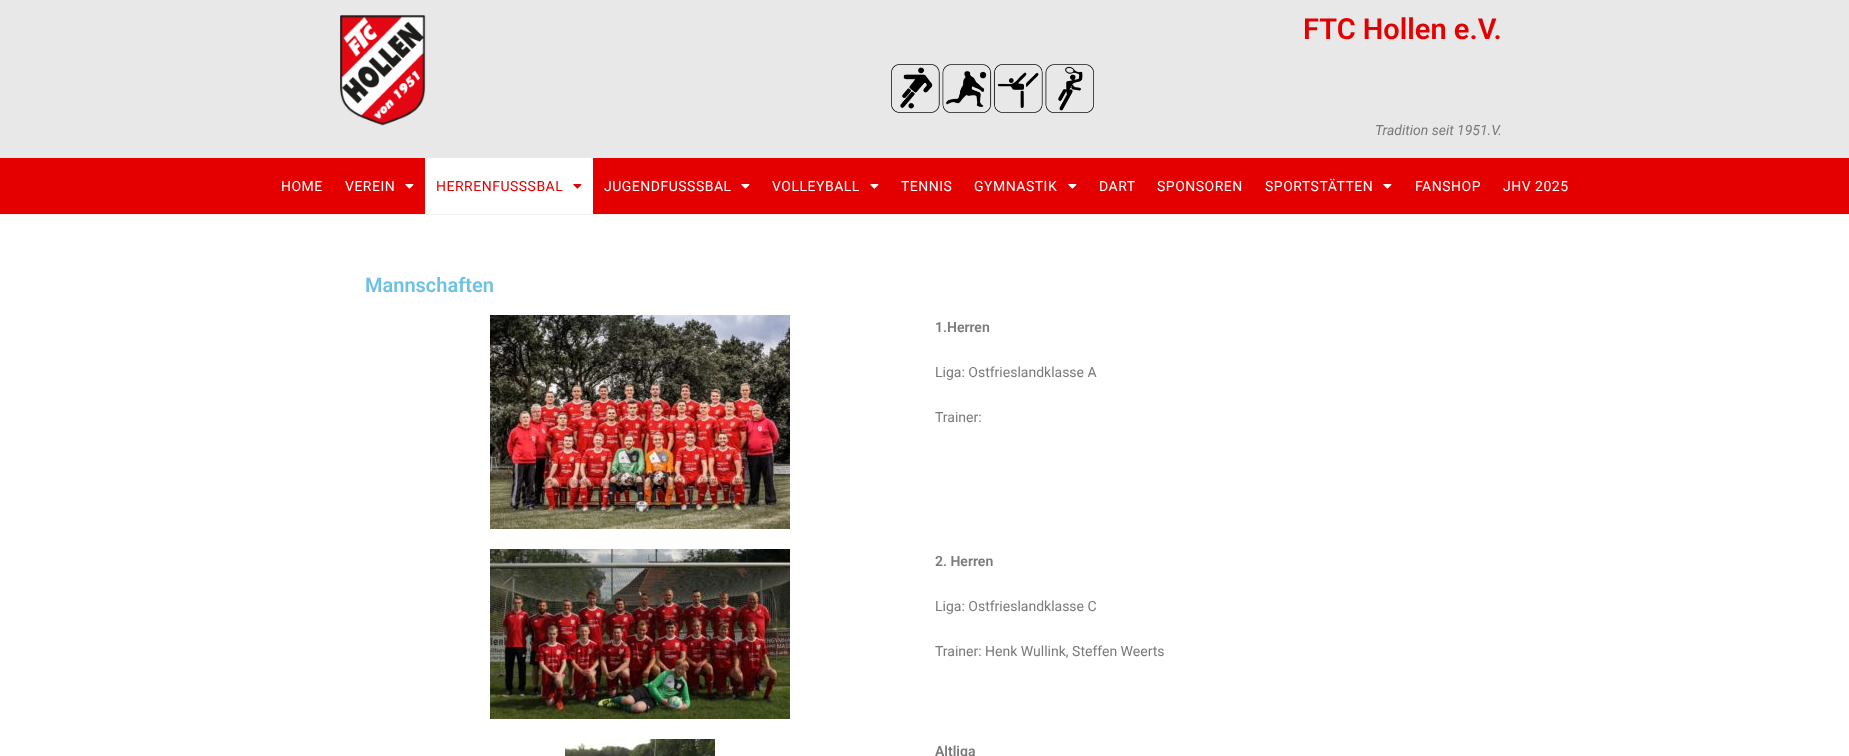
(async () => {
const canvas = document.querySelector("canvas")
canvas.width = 1849
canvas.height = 756
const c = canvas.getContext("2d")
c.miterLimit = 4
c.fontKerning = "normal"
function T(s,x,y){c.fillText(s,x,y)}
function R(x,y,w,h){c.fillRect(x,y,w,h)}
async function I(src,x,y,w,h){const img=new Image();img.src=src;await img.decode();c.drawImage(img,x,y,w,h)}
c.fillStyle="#fff"
R(0,0,1849,756)
c.fillStyle="#f1f1f1"
R(0,214,1849,1)
c.fillStyle="#e8e8e8"
R(0,0,1849,158)
await I("1.png",340,15,86,111)
c.font="600 29px Roboto"
c.fillStyle="#e40000"
T("FTC Hollen e.V.",1303,39)
await I("2.png",891,64,203,49)
c.font="italic 14px Roboto"
c.fillStyle="#7a7a7a"
T("Tradition seit 1951.V.",1375,135)
c.fillStyle="#e40000"
R(0,158,1849,56)
c.letterSpacing="0.5px"
c.font="14px Roboto"
c.fillStyle="#fff"
T("HOME",281,191)
T("VEREIN",345,191)
await I("3.png",405,184,9,5)
R(425,158,168,56)
c.fillStyle="#e40000"
T("HERRENFUSSSBAL",436,191)
await I("4.png",573,184,9,5)
c.fillStyle="#fff"
T("JUGENDFUSSSBAL",604,191)
await I("3.png",741,184,9,5)
T("VOLLEYBALL",772,191)
await I("3.png",870,184,9,5)
T("TENNIS",901,191)
T("GYMNASTIK",974,191)
await I("3.png",1068,184,9,5)
T("DART",1099,191)
T("SPONSOREN",1157,191)
T("SPORTSTÄTTEN",1265,191)
await I("3.png",1383,184,9,5)
T("FANSHOP",1415,191)
T("JHV 2025",1503,191)
c.letterSpacing="0px"
c.font="600 20px Roboto"
c.fillStyle="#6ec1e4"
T("Mannschaften",365,292)
await I("5.png",490,315,300,214)
c.font="600 14px Roboto"
c.fillStyle="#7a7a7a"
T("1.Herren",935,332)
c.font="14px Roboto"
T("Liga: Ostfrieslandklasse A",935,377)
T("Trainer:",935,422)
await I("6.png",490,549,300,170)
c.font="600 14px Roboto"
T("2. Herren",935,566)
c.font="14px Roboto"
T("Liga: Ostfrieslandklasse C",935,611)
T("Trainer: Henk Wullink, Steffen Weerts",935,656)
await I("7.png",565,739,150,17)
c.font="600 14px Roboto"
T("Altliga",935,756)
})()
